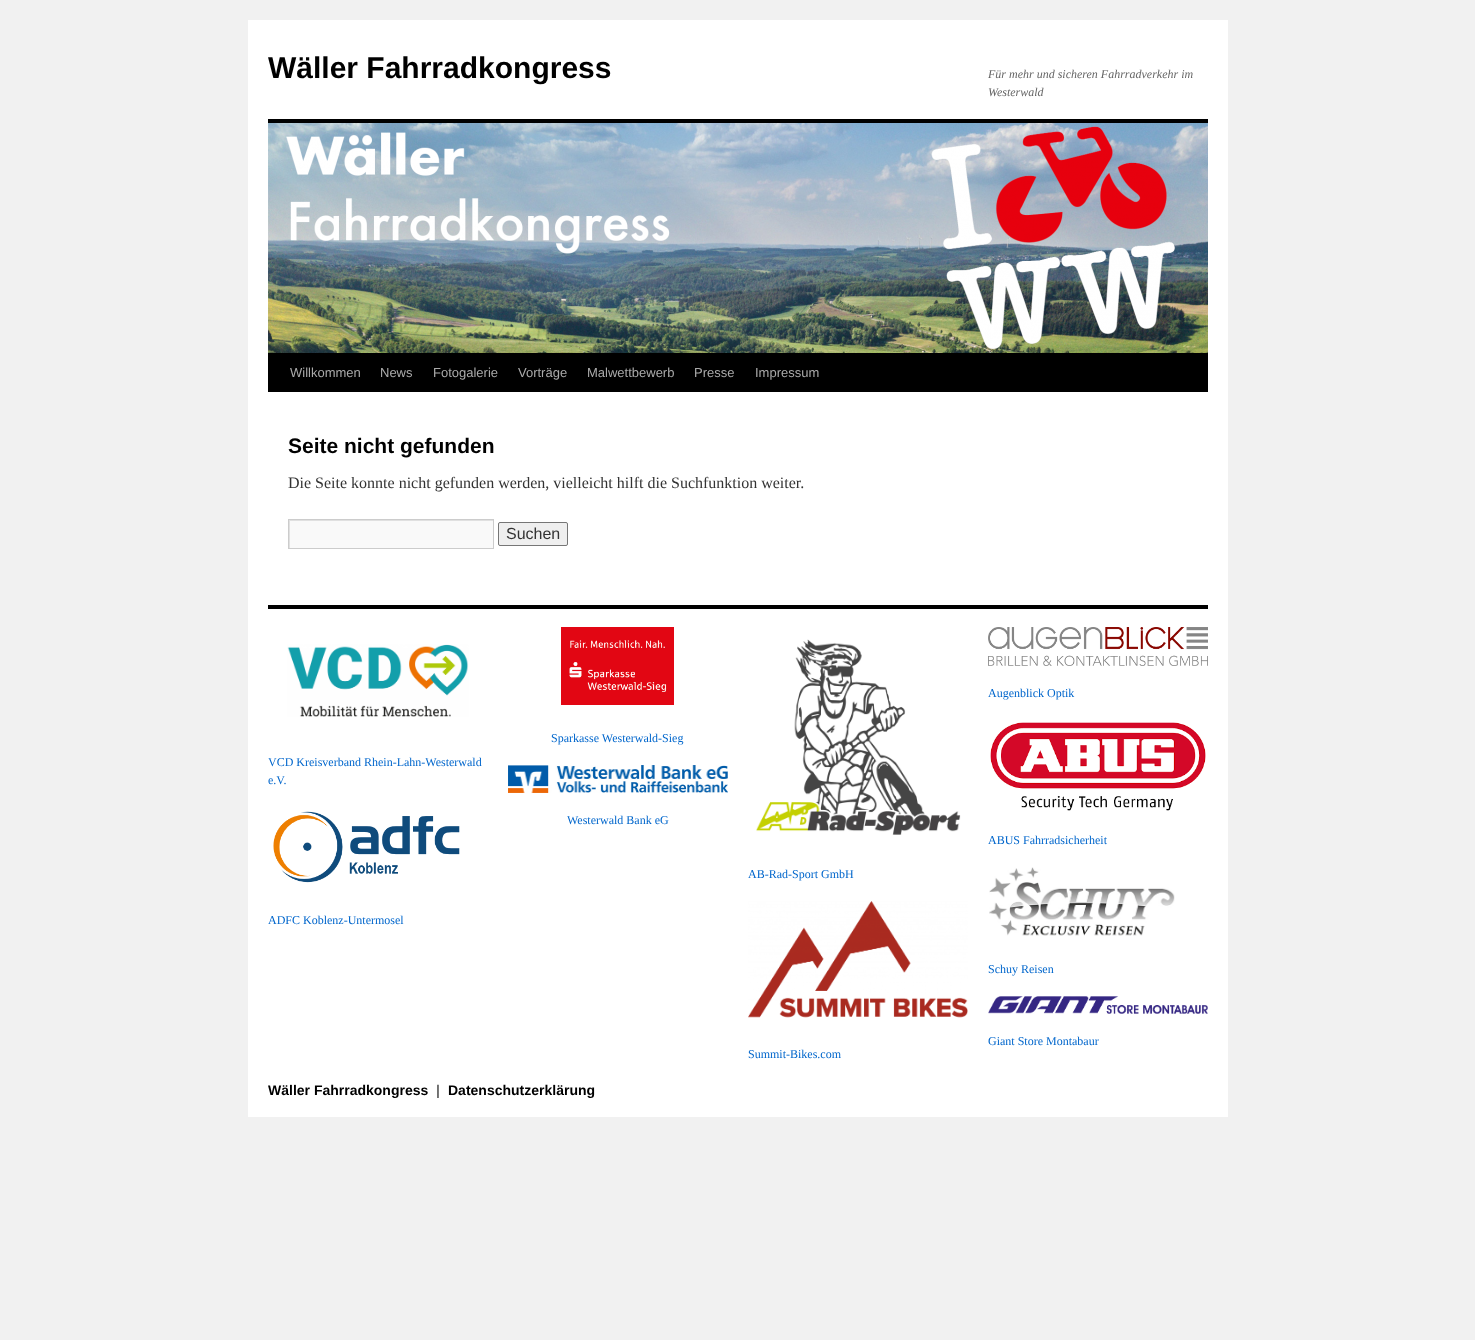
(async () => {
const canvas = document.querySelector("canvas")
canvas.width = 1475
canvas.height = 1340
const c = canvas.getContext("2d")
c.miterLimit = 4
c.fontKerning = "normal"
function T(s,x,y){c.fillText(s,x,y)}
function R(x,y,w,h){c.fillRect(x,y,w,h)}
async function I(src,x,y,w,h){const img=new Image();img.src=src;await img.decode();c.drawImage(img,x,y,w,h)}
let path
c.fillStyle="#f1f1f1"
R(0,0,1475,1340)
c.fillStyle="#fff"
R(248,20,980,1097)
c.font="bold 30px Liberation Sans"
c.fillStyle="#000"
T("Wäller Fahrradkongress",268,78)
c.font="italic 12px Liberation Serif"
c.fillStyle="#666"
T("Für mehr und sicheren Fahrradverkehr im",988,78)
T("Westerwald",988,96)
c.fillStyle="#000"
R(268,119,940,4)
R(268,353,940,39)
await I("1.png",268,123,940,230)
c.font="13px Liberation Sans"
c.fillStyle="#aaa"
T("Willkommen",290,377)
T("News",380,377)
T("Fotogalerie",433,377)
T("Vorträge",518,377)
T("Malwettbewerb",587,377)
T("Presse",694,377)
T("Impressum",755,377)
c.font="bold 21px Liberation Sans"
c.fillStyle="#000"
T("Seite nicht gefunden",288,453)
c.font="16px Liberation Serif"
c.fillStyle="#333"
T("Die Seite konnte nicht gefunden werden, vielleicht hilft die Suchfunktion weiter.",288,488)
c.fillStyle="#f9f9f9"
R(290,521,203,27)
c.save()
c.beginPath()
c.rect(289,520,204,28)
c.clip()
c.fillStyle="#e0e0e0"
path = new Path2D("M190 421h402v226h-402zm100 100h204v28h-204z")
c.fill(path,"evenodd")
c.restore()
c.strokeStyle="#ccc"
c.strokeRect(288.5,519.5,205,29)
c.fillStyle="#efefef"
c.beginPath()
c.roundRect(498.5,522.5,69,23,1.5)
c.fill()
c.strokeStyle="#767676"
c.stroke()
c.font="16px Liberation Sans"
c.fillStyle="#333"
T("Suchen",506,539)
c.fillStyle="#000"
R(268,605,940,4)
await I("2.png",287,644,182,73)
c.font="12px Liberation Serif"
c.fillStyle="#06c"
T("VCD Kreisverband Rhein-Lahn-Westerwald",268,766)
T("e.V.",268,784)
await I("3.png",273,811,187,72)
T("ADFC Koblenz-Untermosel",268,924)
await I("4.png",561,627,113,78)
T("Sparkasse Westerwald-Sieg",551,742)
await I("5.png",508,765,220,28)
T("Westerwald Bank eG",567,824)
await I("6.png",988,627,220,39)
T("Augenblick Optik",988,697)
await I("7.png",990,722,216,89)
T("ABUS Fahrradsicherheit",988,844)
await I("8.png",989,867,186,69)
T("Schuy Reisen",988,973)
await I("9.png",988,996,220,18)
T("Giant Store Montabaur",988,1045)
await I("10.png",756,639,205,196)
T("AB-Rad-Sport GmbH",748,878)
await I("11.png",748,901,220,117)
T("Summit-Bikes.com",748,1058)
c.font="bold 14px Liberation Sans"
c.fillStyle="#000"
T("Wäller Fahrradkongress",268,1095)
c.fillStyle="#666"
T("|",436,1095)
c.fillStyle="#000"
T("Datenschutzerklärung",448,1095)
})()
